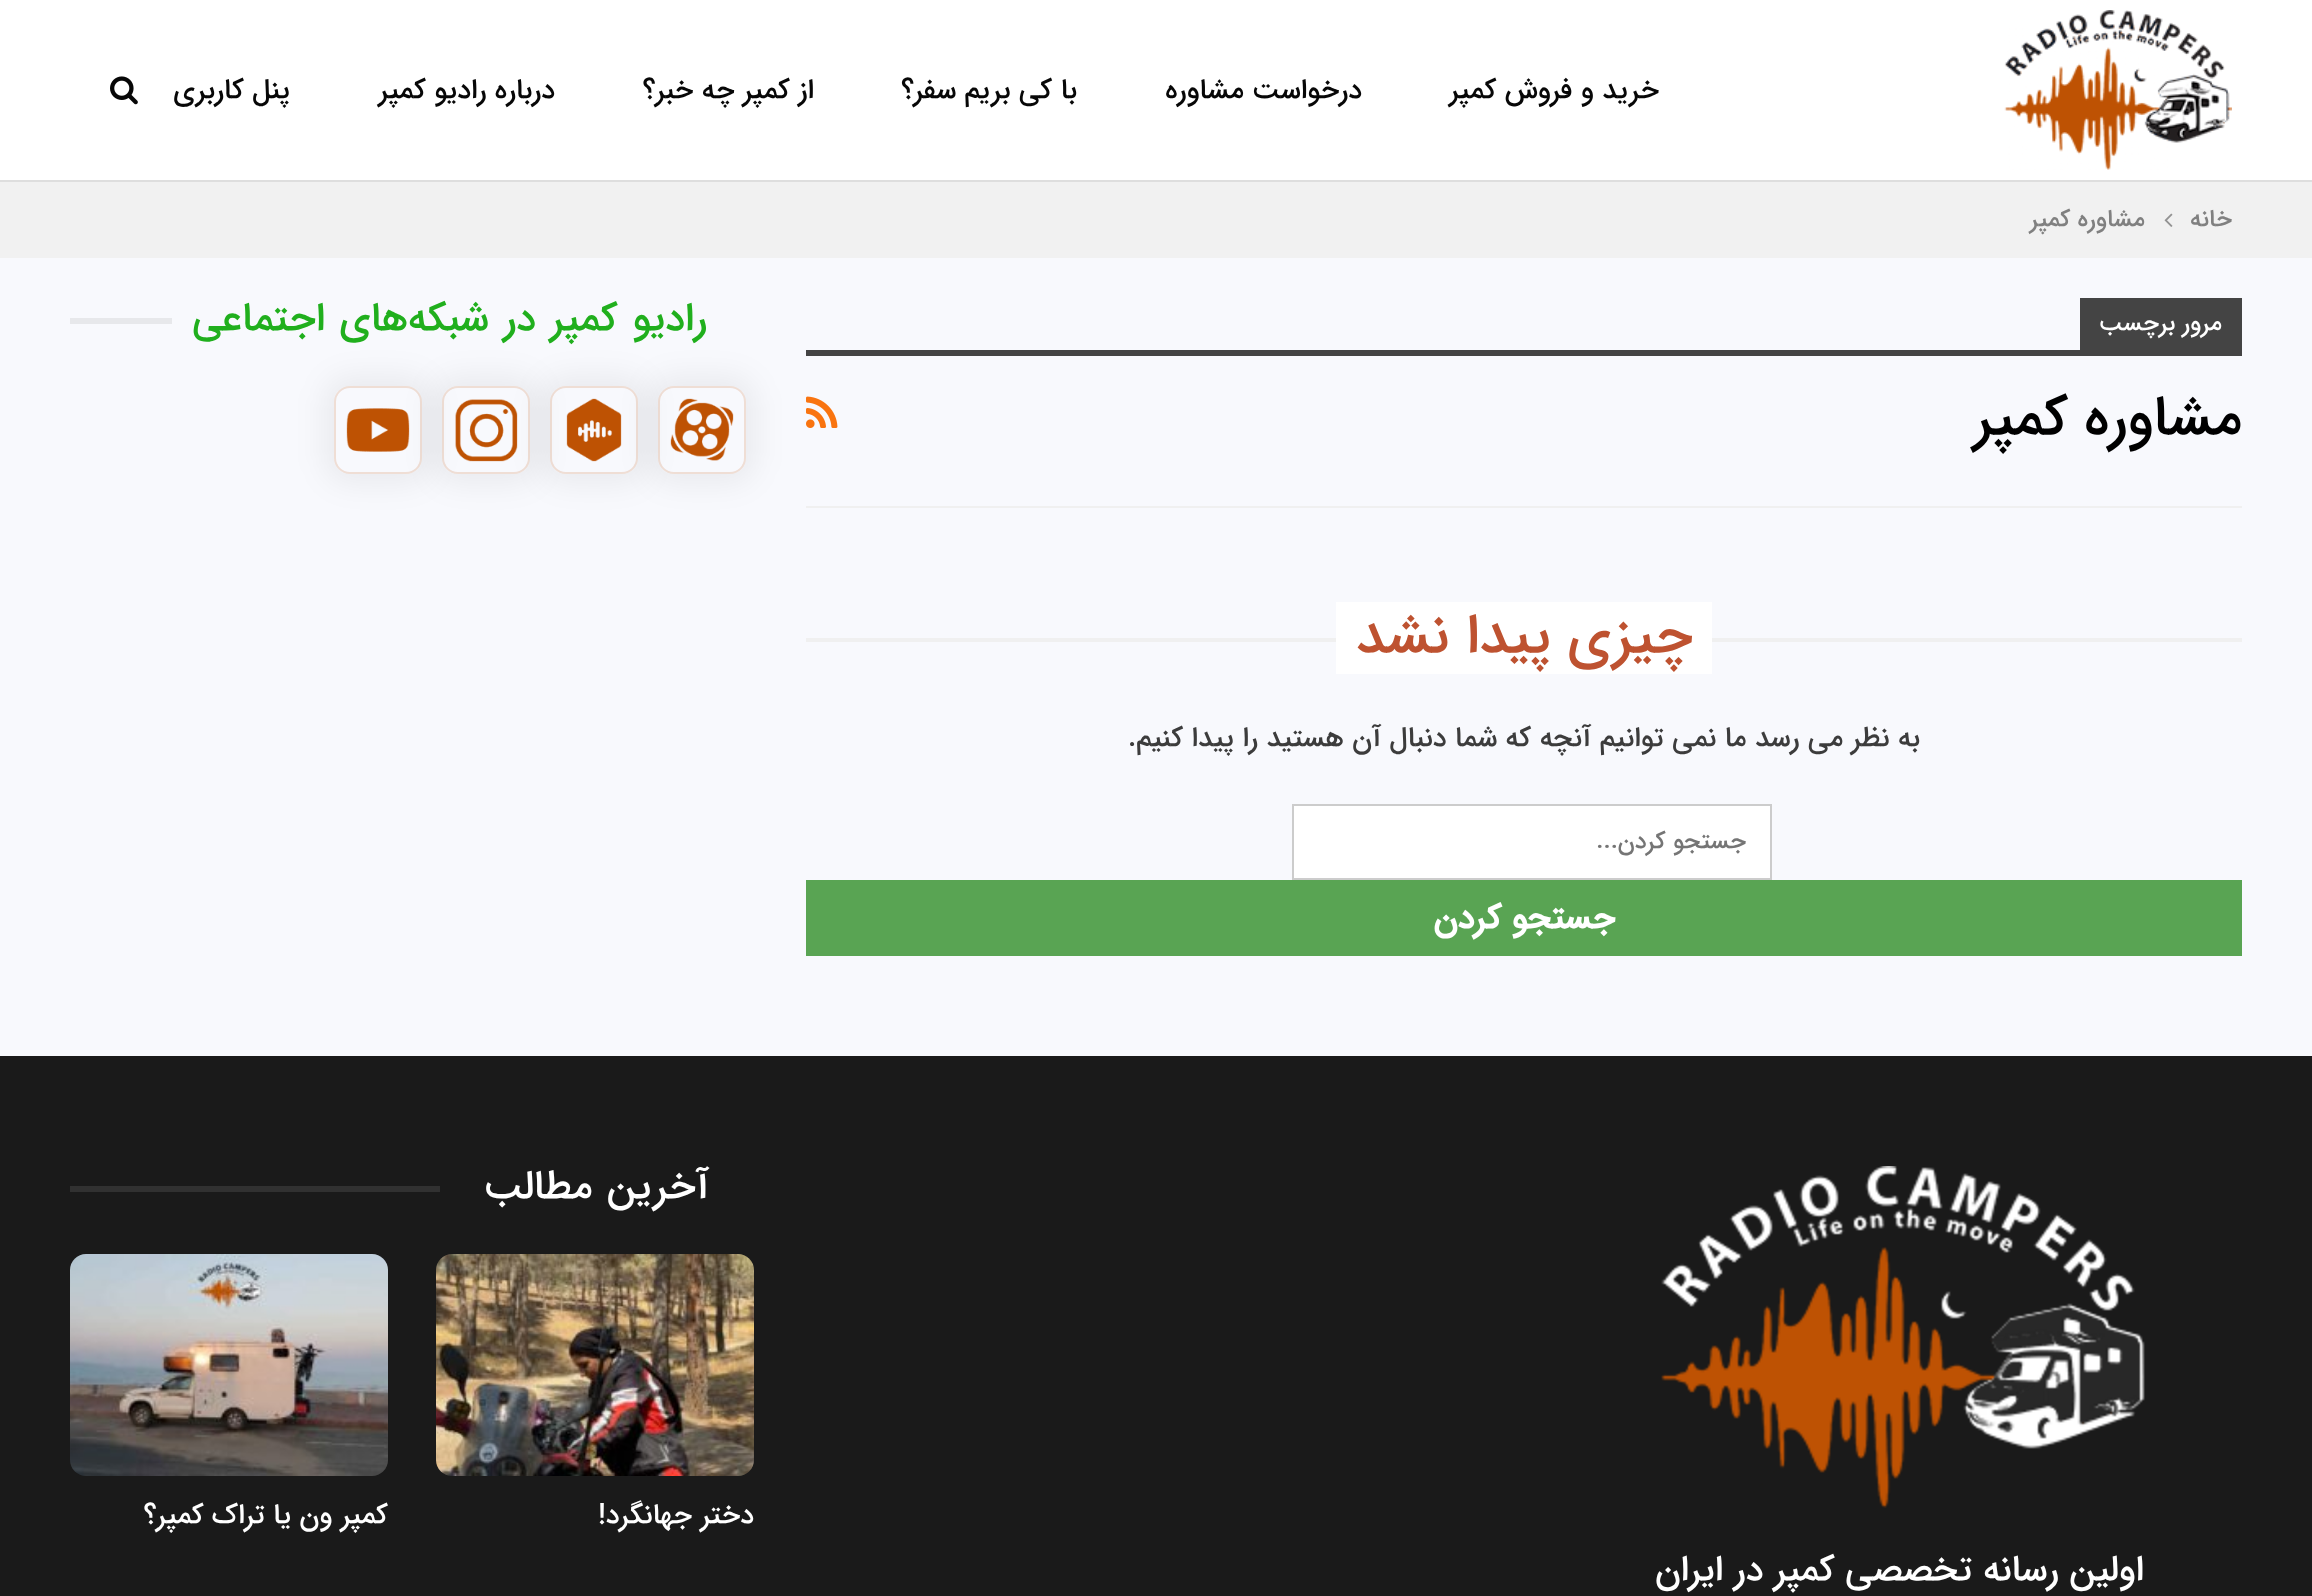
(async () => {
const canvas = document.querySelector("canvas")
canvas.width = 2312
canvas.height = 1596
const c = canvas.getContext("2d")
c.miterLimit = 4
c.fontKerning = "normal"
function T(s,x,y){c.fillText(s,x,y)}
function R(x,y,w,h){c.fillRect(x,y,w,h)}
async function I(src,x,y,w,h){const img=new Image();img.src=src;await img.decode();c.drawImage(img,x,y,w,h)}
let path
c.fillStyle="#f8f9fd"
R(0,0,2312,1596)
c.fillStyle="#fff"
R(0,0,2312,180)
c.fillStyle="#dedede"
R(0,180,2312,2)
await I("1.png",2004,10,228,160)
c.direction="rtl"
c.font="500 28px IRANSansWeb"
c.fillStyle="#070707"
T("خرید و فروش کمپر",1659,98)
T("درخواست مشاوره",1362,98)
T("با کی بریم سفر؟",1077,98)
T("از کمپر چه خبر؟",814,98)
T("درباره رادیو کمپر",555,98)
T("پنل کاربری",290,98)
await I("2.png",110,76,28,29)
c.fillStyle="#f1f1f1"
R(0,182,2312,76)
c.font="500 24px IRANSansWeb"
c.fillStyle="#808080"
T("خانه",2232,226)
await I("3.png",2164,213,9,14)
T("مشاوره کمپر",2145,226)
c.fillStyle="#f0f0f0"
R(806,506,1436,2)
c.fillStyle="#444"
R(2080,298,162,52)
c.fillStyle="#fff"
T("مرور برچسب",2222,330)
c.fillStyle="#444"
R(806,350,1436,6)
c.font="500 56px IRANSansWeb"
c.fillStyle="#000"
T("مشاوره کمپر",2242,434)
await I("4.png",806,396,32,32)
c.fillStyle="#f0f0f0"
R(806,638,1436,4)
c.fillStyle="#fff"
R(1336,602,376,72)
c.fillStyle="#be5230"
T("چیزی پیدا نشد",1693,652)
c.font="500 28px IRANSansWeb"
c.fillStyle="#3c3c3c"
T("به نظر می رسد ما نمی توانیم آنچه که شما دنبال آن هستید را پیدا کنیم.",1920,746)
c.fillStyle="#fff"
c.beginPath()
c.rect(1293,805,478,74)
c.fill()
c.strokeStyle="#ccc"
c.lineWidth=2
c.stroke()
c.font="500 24px IRANSansWeb"
c.fillStyle="#757575"
T("جستجو کردن...",1746,848)
c.fillStyle="#59a453"
R(806,880,1436,76)
c.font="bold 34px IRANSansWeb"
c.fillStyle="#fff"
T("جستجو کردن",1615,928)
c.save()
path = new Path2D("M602 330h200v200h-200zm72 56h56c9 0 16 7 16 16v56c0 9-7 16-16 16h-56c-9 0-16-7-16-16v-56c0-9 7-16 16-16z")
c.clip(path,"evenodd")
c.fillStyle="#0000000f"
c.filter="blur(15px)"
c.beginPath()
c.roundRect(648,376,108,108,26)
c.fill()
c.filter="none"
c.restore()
c.beginPath()
c.roundRect(659,387,86,86,15)
c.strokeStyle="#be510429"
c.stroke()
await I("5.png",670,398,64,63)
c.save()
path = new Path2D("M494 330h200v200h-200zm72 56h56c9 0 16 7 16 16v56c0 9-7 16-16 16h-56c-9 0-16-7-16-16v-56c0-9 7-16 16-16z")
c.clip(path,"evenodd")
c.fillStyle="#0000000f"
c.filter="blur(15px)"
c.beginPath()
c.roundRect(540,376,108,108,26)
c.fill()
c.filter="none"
c.restore()
c.beginPath()
c.roundRect(551,387,86,86,15)
c.stroke()
await I("6.png",566,398,56,64)
c.save()
path = new Path2D("M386 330h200v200h-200zm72 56h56c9 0 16 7 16 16v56c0 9-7 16-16 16h-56c-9 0-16-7-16-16v-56c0-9 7-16 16-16z")
c.clip(path,"evenodd")
c.fillStyle="#0000000f"
c.filter="blur(15px)"
c.beginPath()
c.roundRect(432,376,108,108,26)
c.fill()
c.filter="none"
c.restore()
c.beginPath()
c.roundRect(443,387,86,86,15)
c.stroke()
await I("7.png",455,399,63,63)
c.save()
path = new Path2D("M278 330h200v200h-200zm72 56h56c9 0 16 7 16 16v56c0 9-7 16-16 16h-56c-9 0-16-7-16-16v-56c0-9 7-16 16-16z")
c.clip(path,"evenodd")
c.fillStyle="#0000000f"
c.filter="blur(15px)"
c.beginPath()
c.roundRect(324,376,108,108,26)
c.fill()
c.filter="none"
c.restore()
c.letterSpacing="-0.4px"
c.wordSpacing="3px"
c.font="500 40px IRANSansWeb"
c.fillStyle="#20af1d"
T("رادیو کمپر در شبکه‌های اجتماعی",707,330)
c.fillStyle="#e7e8eb"
R(70,318,102,6)
c.beginPath()
c.roundRect(335,387,86,86,15)
c.stroke()
await I("8.png",346,408,64,44)
c.fillStyle="#1a1a1a"
R(0,1056,2312,540)
c.fillStyle="#fff"
T("‌ ‌آخرین مطالب",724,1198)
c.fillStyle="#313131"
R(70,1186,370,6)
await I("9.png",436,1254,318,222)
c.letterSpacing="0px"
c.wordSpacing="0px"
c.font="500 28px IRANSansWeb"
c.fillStyle="#fff"
T("دختر جهانگرد!",754,1523)
await I("10.png",70,1254,318,222)
T("کمپر ون یا تراک کمپر؟",388,1523)
await I("11.png",1661,1166,484,342)
c.font="500 36px IRANSansWeb"
T("اولین رسانه تخصصی کمپر در ایران",2144,1580)
})()
